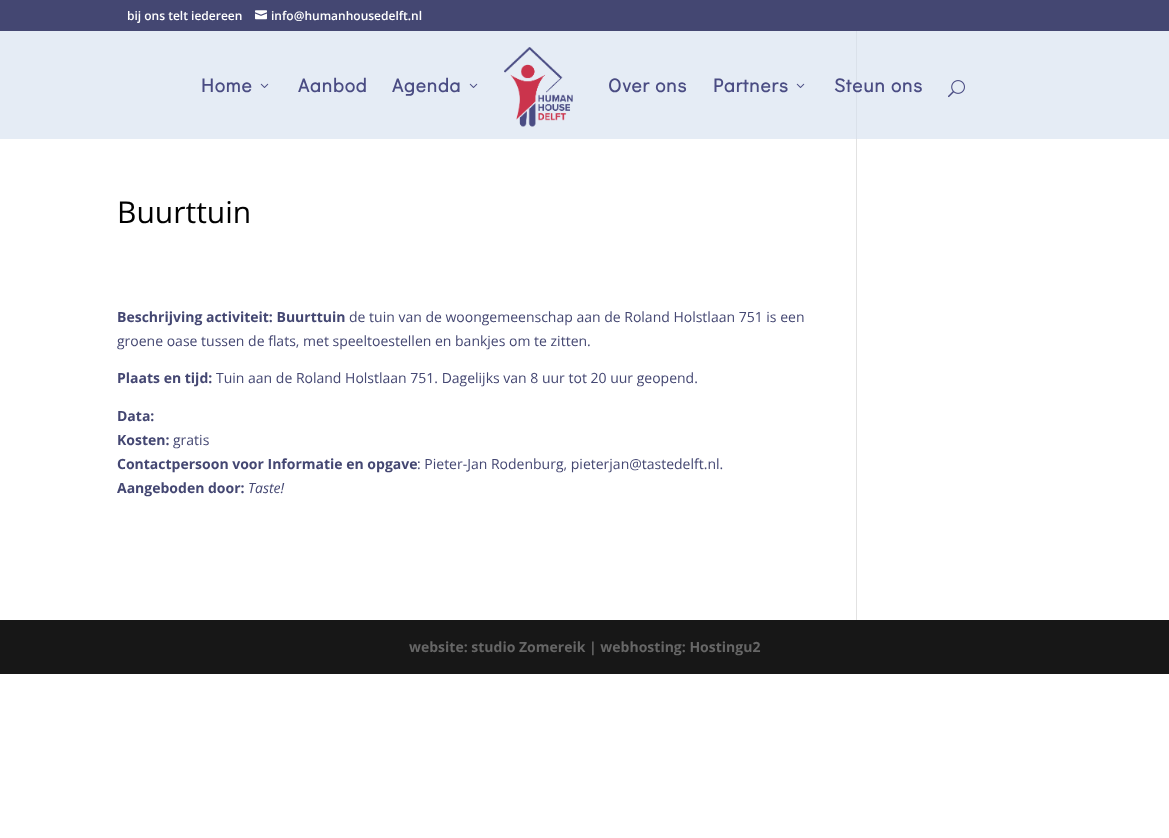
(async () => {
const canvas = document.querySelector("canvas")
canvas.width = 1169
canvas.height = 838
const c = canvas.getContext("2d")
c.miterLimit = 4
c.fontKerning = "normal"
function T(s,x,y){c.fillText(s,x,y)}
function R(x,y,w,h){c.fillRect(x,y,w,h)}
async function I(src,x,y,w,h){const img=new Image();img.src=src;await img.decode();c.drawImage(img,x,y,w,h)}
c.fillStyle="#fff"
R(0,0,1169,838)
c.fillStyle="#e5ecf5"
R(0,31,1169,108)
c.fillStyle="#444772"
R(0,0,1169,31)
c.font="600 12px Open Sans"
c.fillStyle="#fff"
T("bij ons telt iedereen",127,20)
await I("1.png",255,10,12,10)
T("info@humanhousedelft.nl",271,20)
c.letterSpacing="1px"
c.font="bold 19px Didact Gothic"
c.fillStyle="#4a4c83"
T("Home",201,92)
await I("2.png",260,83,9,5)
T("Aanbod",298,92)
T("Agenda",392,92)
await I("2.png",469,83,9,5)
await I("3.png",504,47,69,80)
T("Over ons",608,92)
T("Partners",713,92)
await I("2.png",796,83,9,5)
c.fillStyle="#dae1ea"
R(856,31,1,108)
c.fillStyle="#4a4c83"
T("Steun ons",834,92)
await I("4.png",948,80,17,18)
c.letterSpacing="0px"
c.font="30px Open Sans"
c.fillStyle="#000"
T("Buurttuin",117,223)
c.font="bold 14px Open Sans"
c.fillStyle="#444772"
T("Beschrijving activiteit: Buurttuin",117,322)
c.font="14px Open Sans"
T("de tuin van de woongemeenschap aan de Roland Holstlaan 751 is een",349,322)
T("groene oase tussen de flats, met speeltoestellen en bankjes om te zitten.",117,346)
c.font="bold 14px Open Sans"
T("Plaats en tijd:",117,383)
c.font="14px Open Sans"
T("Tuin aan de Roland Holstlaan 751. Dagelijks van 8 uur tot 20 uur geopend.",216,383)
c.font="bold 14px Open Sans"
T("Data:",117,421)
T("Kosten:",117,445)
c.font="14px Open Sans"
T("gratis",173,445)
c.font="bold 14px Open Sans"
T("Contactpersoon voor Informatie en opgave",117,469)
c.font="14px Open Sans"
T(": Pieter-Jan Rodenburg, pieterjan@tastedelft.nl.",417,469)
c.font="bold 14px Open Sans"
T("Aangeboden door:",117,493)
c.font="italic 14px Open Sans"
T("Taste!",248,493)
c.fillStyle="#e2e2e2"
R(856,139,1,481)
c.fillStyle="#171717"
R(0,620,1169,54)
c.font="bold 14px Open Sans"
c.fillStyle="#666"
T("website: studio Zomereik | webhosting: Hostingu2",409,652)
})()
